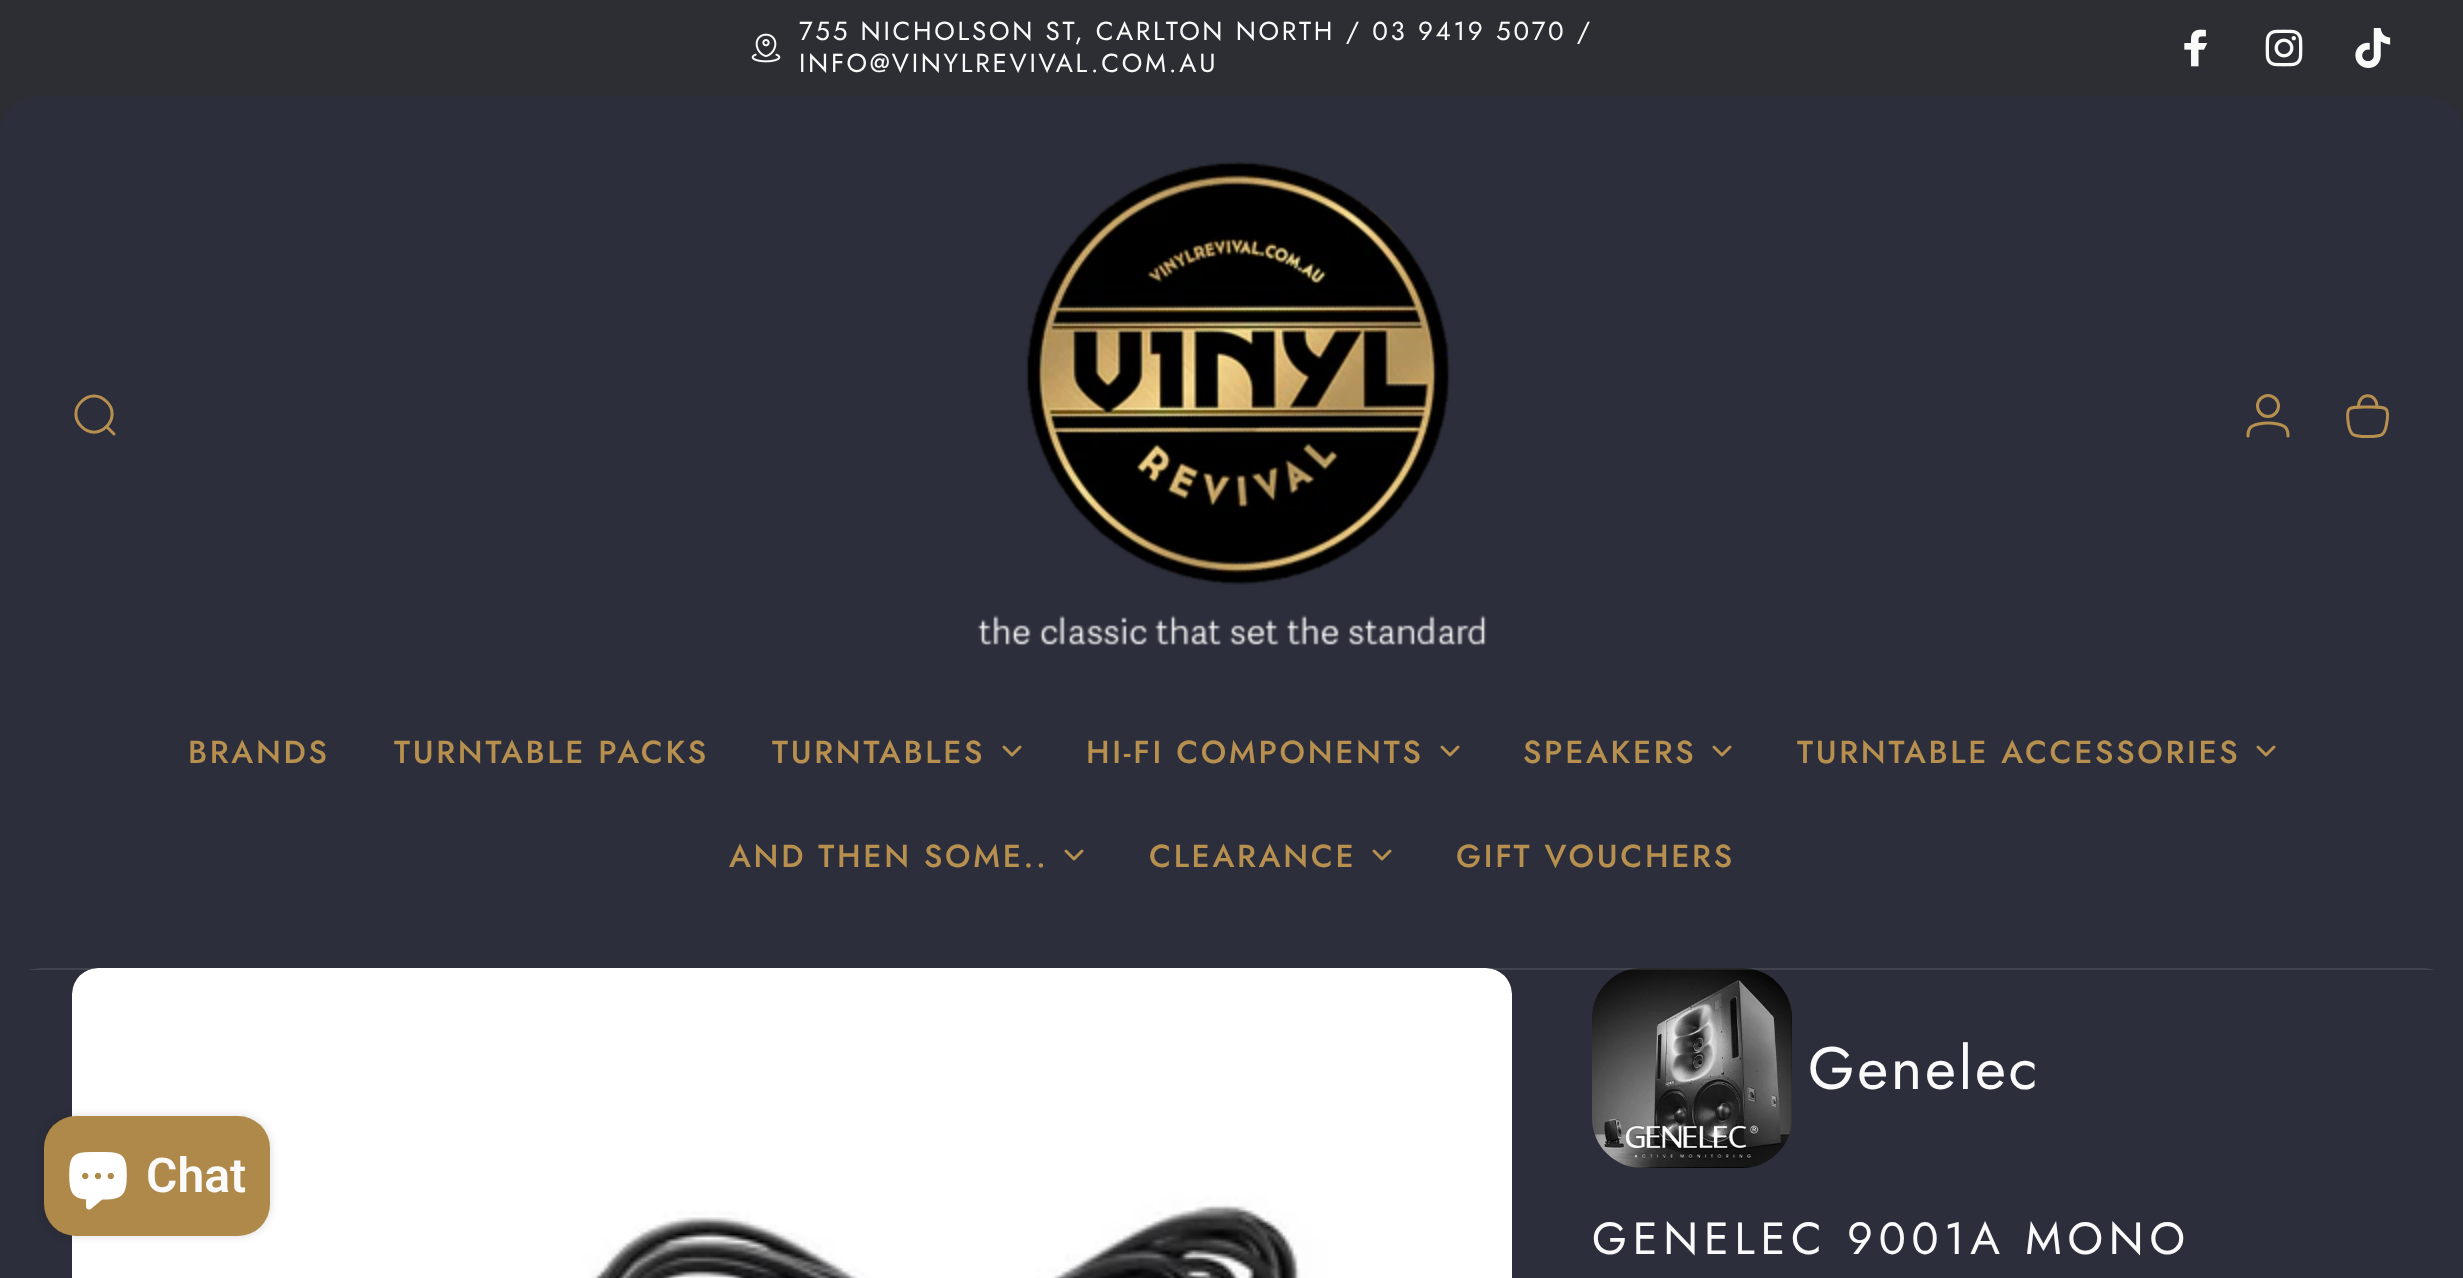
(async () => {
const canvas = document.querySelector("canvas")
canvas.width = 2463
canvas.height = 1278
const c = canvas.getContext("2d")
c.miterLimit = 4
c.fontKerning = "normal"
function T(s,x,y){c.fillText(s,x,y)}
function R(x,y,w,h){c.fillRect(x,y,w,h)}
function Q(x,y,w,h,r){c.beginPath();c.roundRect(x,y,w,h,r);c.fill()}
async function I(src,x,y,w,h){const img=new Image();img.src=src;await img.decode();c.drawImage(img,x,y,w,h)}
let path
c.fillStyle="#2c2f3b"
R(0,0,2463,1278)
c.fillStyle="#2d2e33"
R(0,0,2463,38)
path = new Path2D("M38 0h2388c21 0 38 17 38 38v96h-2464v-96c0-21 17-38 38-38z")
c.fill(path)
await I("1.png",751,33,30,30)
c.letterSpacing="2.7px"
c.font="26px Jost"
c.fillStyle="#fafafa"
T("755 NICHOLSON ST, CARLTON NORTH / 03 9419 5070 /",799,40)
T("INFO@VINYLREVIVAL.COM.AU",799,72)
await I("2.png",2184,29,24,38)
await I("3.png",2265,29,38,38)
await I("4.png",2355,28,36,40)
c.fillStyle="#2c2f3b"
path = new Path2D("M38 96h2388c21 0 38 17 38 38v834h-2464v-834c0-21 17-38 38-38z")
c.fill(path)
path = new Path2D("M114 434l-7.5-7.5m0 0c7.5-7 7.5-18 0-25c-7-7.5-18-7.5-25 0c-7.5 7-7.5 18 0 25c7 7.5 18 7.5 25 0z")
c.strokeStyle="#b7904f"
c.lineWidth=3
c.lineCap="round"
c.stroke(path)
await I("5.png",977,161,510,485)
c.beginPath()
c.arc(2268,406,10.5,0,7)
c.stroke()
path = new Path2D("M2268 423c4.5 0 15 1 18 5c2 2.5 2 5 2 8m-20-13c-4.5 0-15 1-18 5c-2 2.5-2 5-2 8")
c.stroke(path)
path = new Path2D("M2358.5 407c0-15 18.5-15 18.5 0m-9.5 0c-19.5 0-22-1-19 17.5c2 10.5 3.5 12 19 12c15.5 0 17-1.5 19-12c3.5-18.5 .5-17.5-19-17.5z")
c.lineCap="butt"
c.stroke(path)
c.font="500 31.75px Jost"
c.fillStyle="#b7904f"
T("BRANDS",188,763)
T("TURNTABLE PACKS",394,763)
T("TURNTABLES",772,763)
path = new Path2D("M1004 747l8 8l8-8")
c.lineCap="round"
c.lineJoin="round"
c.stroke(path)
T("HI-FI COMPONENTS",1086,763)
path = new Path2D("M1442 747l8 8l8-8")
c.stroke(path)
T("SPEAKERS",1523,763)
path = new Path2D("M1714 747l8 8l8-8")
c.stroke(path)
T("TURNTABLE ACCESSORIES",1797,763)
path = new Path2D("M2258 747l8 8l8-8")
c.stroke(path)
T("AND THEN SOME..",729,867)
path = new Path2D("M1066 851l8 8l8-8")
c.stroke(path)
T("CLEARANCE",1149,867)
path = new Path2D("M1374 851l8 8l8-8")
c.stroke(path)
T("GIFT VOUCHERS",1456,867)
await I("7.png",72,968,1440,310)
await I("8.png",1592,968,200,200)
c.fillStyle="#ffffff1a"
R(28,968,2407,2)
c.fillStyle="#2c2f3b"
path = new Path2D("M39 968h-39v39h.5c0-21.5 17-38.5 38.5-38.5z")
c.fill(path,"evenodd")
c.save()
c.beginPath()
c.rect(2426,968,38,38)
c.clip()
path = new Path2D("M2424 968h39v39h-.5c0-21.5-17-38.5-38.5-38.5z")
c.fill(path,"evenodd")
c.restore()
c.fillStyle="#00000026"
c.filter="blur(5px)"
c.beginPath()
c.roundRect(44,1116,226,120,32)
c.fill()
c.filter="none"
c.fillStyle="#af8949"
Q(44,1116,226,120,32)
await I("6.png",69,1152,58,58)
c.letterSpacing="0px"
c.font="600 48px Roboto"
c.fillStyle="#fafafa"
T("Chat",146,1192)
c.letterSpacing="2.7px"
c.font="60px Jost"
T("Genelec",1808,1089)
c.letterSpacing="5.8px"
c.font="45px Jost"
T("GENELEC 9001A MONO",1592,1254)
})()
